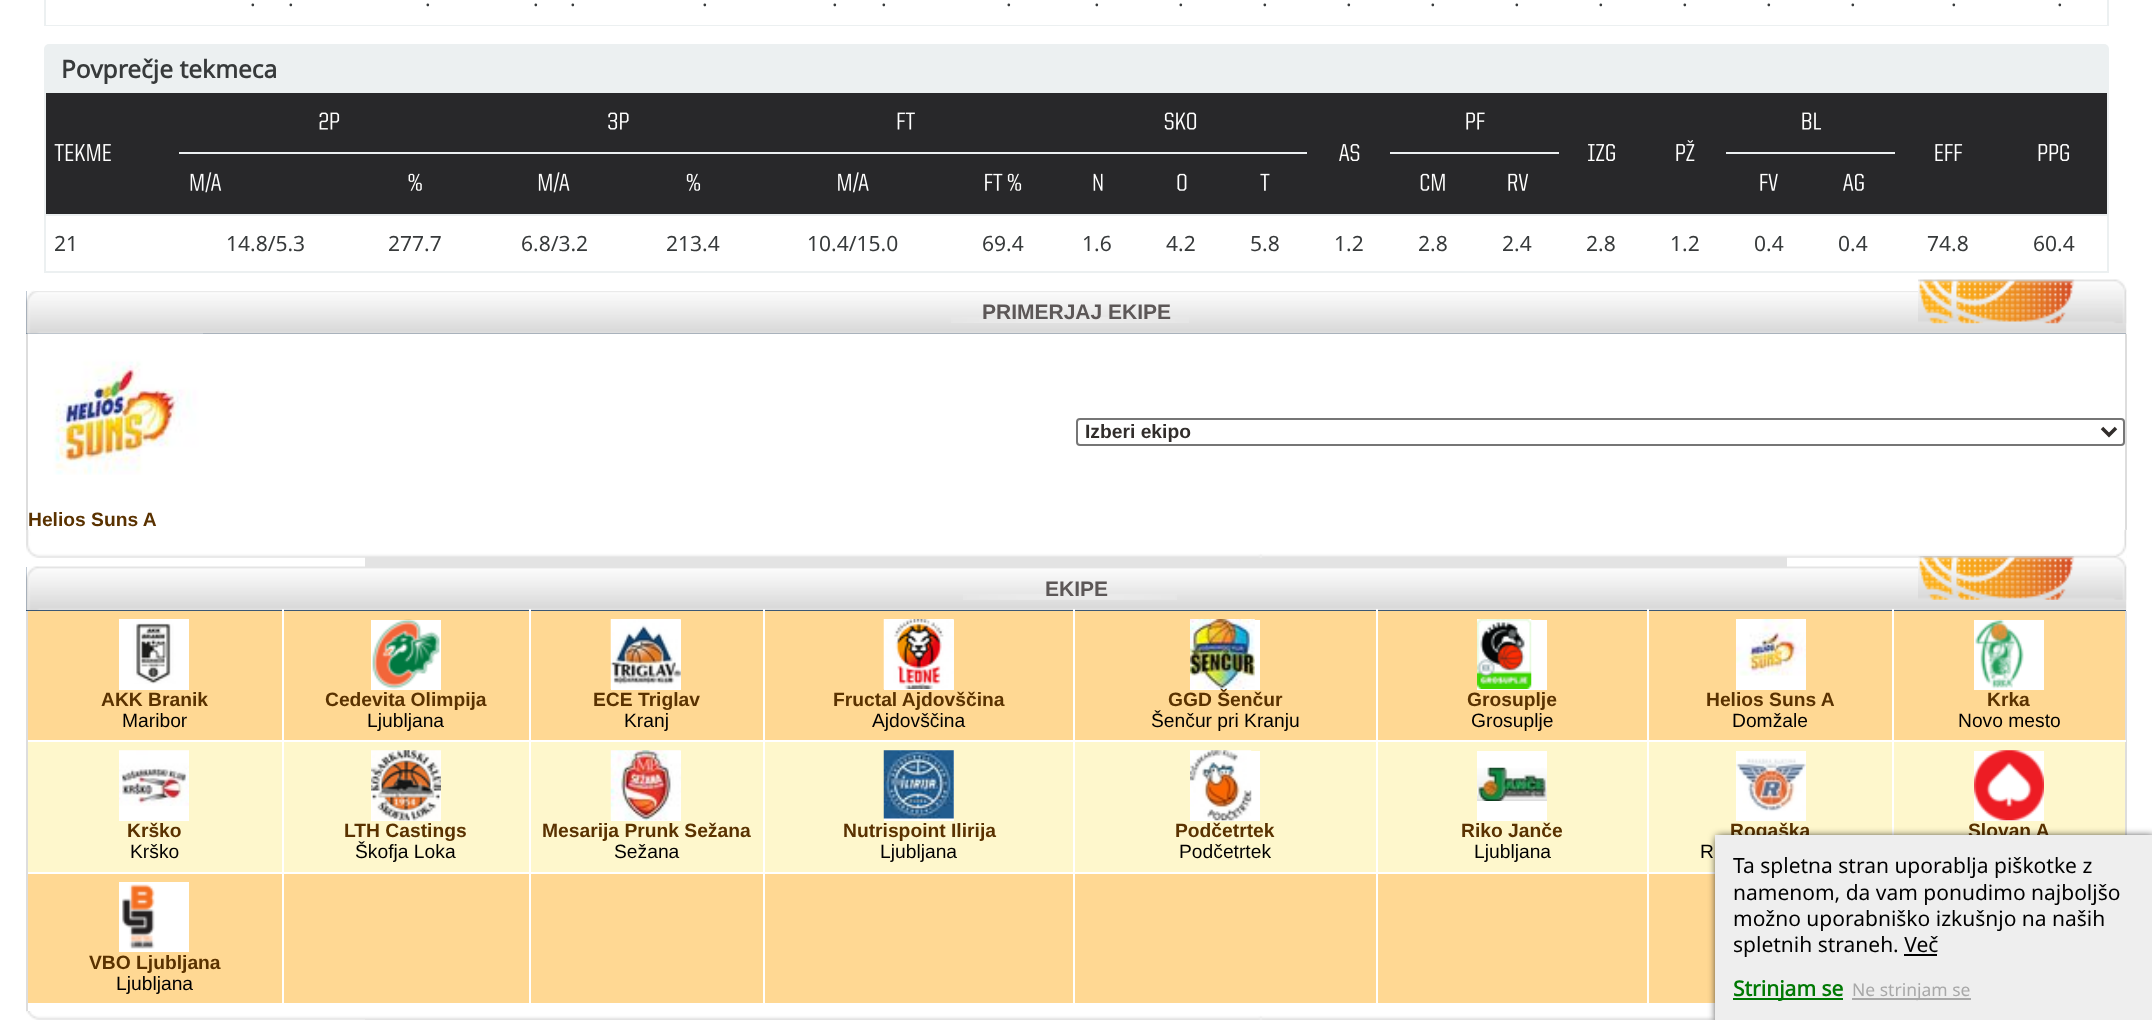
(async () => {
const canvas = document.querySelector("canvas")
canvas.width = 2152
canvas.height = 1020
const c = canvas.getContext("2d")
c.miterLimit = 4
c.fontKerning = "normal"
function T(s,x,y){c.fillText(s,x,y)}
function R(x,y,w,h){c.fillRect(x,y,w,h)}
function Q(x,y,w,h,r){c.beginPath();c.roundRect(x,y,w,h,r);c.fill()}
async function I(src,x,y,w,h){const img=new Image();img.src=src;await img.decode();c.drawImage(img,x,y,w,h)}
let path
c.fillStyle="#fff"
R(0,0,2152,1020)
c.fillStyle="#e3e3e3"
R(365,557,1422,463)
c.fillStyle="#052b52"
R(26,291,2100,43)
await I("26.png",26,290,2101,44)
c.fillStyle="#fff"
Q(26,-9,2100,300,9)
c.fillStyle="#ecf0f1"
R(2107,0,2,26)
R(44,25,2065,1)
R(44,0,2,26)
c.font="21px Noto Sans"
c.fillStyle="#373a3b"
T(".",250,6)
T(".",288,6)
T(".",425,6)
T(".",533,6)
T(".",570,6)
T(".",702,6)
T(".",832,6)
T(".",881,6)
T(".",1006,6)
T(".",1094,6)
T(".",1178,6)
T(".",1262,6)
T(".",1346,6)
T(".",1430,6)
T(".",1514,6)
T(".",1598,6)
T(".",1682,6)
T(".",1766,6)
T(".",1850,6)
T(".",1951,6)
T(".",2057,6)
c.fillStyle="#ecf0f1"
c.beginPath()
c.roundRect(44,44,2065,49,[5,5,0,0])
c.fill()
c.font="bold 24.5px Noto Sans"
c.fillStyle="#373a3b"
T("Povprečje tekmeca",61,78)
c.fillStyle="#28282a"
R(46,93,134,121)
c.fillStyle="#ecf0f1"
R(1642,214,253,2)
R(1390,214,253,2)
R(2107,93,2,180)
R(44,271,2065,2)
R(44,214,2,59)
R(44,214,1347,2)
R(44,93,2,122)
await I("1.png",54,144,57,17)
c.fillStyle="#28282a"
R(180,93,1127,59)
await I("2.png",319,112,21,18)
R(1307,93,84,121)
await I("3.png",1339,144,21,17)
R(1391,93,168,59)
c.fillStyle="#ecf0f1"
R(1390,152,169,2)
await I("4.png",1466,112,19,18)
c.fillStyle="#28282a"
R(1559,93,168,121)
await I("5.png",1588,144,27,17)
R(1727,93,168,59)
c.fillStyle="#ecf0f1"
R(1726,152,169,2)
await I("6.png",1802,112,20,18)
c.fillStyle="#28282a"
R(1895,93,212,121)
await I("7.png",1935,144,28,17)
c.fillStyle="#ecf0f1"
R(179,152,1128,2)
await I("8.png",1164,112,33,18)
await I("9.png",608,112,21,18)
await I("10.png",897,112,18,18)
await I("11.png",1676,140,19,21)
R(1894,214,215,2)
await I("12.png",2038,144,32,17)
c.fillStyle="#28282a"
R(180,154,1127,60)
await I("13.png",190,172,32,21)
R(1391,154,168,60)
await I("14.png",1420,173,25,18)
R(1727,154,168,60)
await I("15.png",1760,173,18,18)
await I("16.png",538,172,32,21)
await I("17.png",838,172,31,21)
await I("18.png",1260,173,10,18)
await I("19.png",408,173,14,18)
await I("20.png",686,173,15,18)
await I("21.png",985,173,37,18)
await I("22.png",1093,173,10,18)
await I("23.png",1177,173,10,18)
await I("24.png",1508,173,21,18)
await I("25.png",1843,173,21,18)
c.font="21px Noto Sans"
c.fillStyle="#373a3b"
T("21",54,251)
T("14.8/5.3",226,251)
T("277.7",388,251)
T("6.8/3.2",521,251)
T("213.4",666,251)
T("10.4/15.0",807,251)
T("69.4",982,251)
T("1.6",1082,251)
T("4.2",1166,251)
T("5.8",1250,251)
T("1.2",1334,251)
T("2.8",1418,251)
T("2.4",1502,251)
T("2.8",1586,251)
T("1.2",1670,251)
T("0.4",1754,251)
T("0.4",1838,251)
T("74.8",1927,251)
T("60.4",2033,251)
await I("27.png",951,317,238,6)
c.font="bold 21px Liberation Sans"
c.fillStyle="#5c5757"
T("PRIMERJAJ EKIPE",982,319)
await I("28.png",1918,279,209,45)
c.fillStyle="#ddd"
R(2125,334,2,196)
R(26,334,2,196)
c.beginPath()
c.roundRect(1077,419,1047,26,3)
c.strokeStyle="#767676"
c.lineWidth=2
c.stroke()
path = new Path2D("M2102 428l7 7l7-7")
c.strokeStyle="#312d2b"
c.lineWidth=3.5
c.stroke(path)
c.font="bold 19.25px Liberation Sans"
c.fillStyle="#312d2b"
T("Izberi ekipo",1085,438)
await I("29.png",28,333,175,142)
c.fillStyle="#5a3200"
T("Helios Suns A",28,526)
await I("30.png",26,529,2101,29)
await I("31.png",2116,529,11,29)
c.fillStyle="#052b52"
R(26,567,2100,44)
await I("32.png",26,566,2101,45)
await I("33.png",963,594,214,6)
c.font="bold 21px Liberation Sans"
c.fillStyle="#5c5757"
T("EKIPE",1045,596)
await I("34.png",1918,556,209,44)
c.fillStyle="#ddd"
R(2125,611,2,224)
R(26,611,2,401)
c.fillStyle="#fff"
R(529,872,2,136)
R(763,872,2,136)
R(1073,872,2,136)
R(1376,872,2,136)
R(1647,872,2,136)
R(365,1003,1350,8)
c.fillStyle="#ffd893"
R(28,611,254,129)
c.fillStyle="#fff"
R(119,684,70,6)
await I("35.png",119,619,70,65)
c.font="bold 19.25px Liberation Sans"
c.fillStyle="#5a3200"
T("AKK Branik",101,706)
c.font="19.25px Liberation Sans"
c.fillStyle="#000"
T("Maribor",122,727)
c.fillStyle="#ffd893"
R(284,611,245,129)
c.fillStyle="#fff"
R(1647,872,68,2)
R(1647,740,2,133)
R(1647,740,140,2)
R(1647,609,2,133)
R(1376,872,273,2)
R(1376,740,2,133)
R(1376,740,273,2)
R(1376,609,2,133)
R(1073,872,304,2)
R(1073,740,2,133)
R(1073,740,304,2)
R(1073,609,2,133)
R(763,872,312,2)
R(763,740,2,133)
R(763,740,312,2)
R(763,609,2,133)
R(529,872,236,2)
R(529,740,2,133)
R(529,740,236,2)
R(529,609,2,133)
R(365,740,165,2)
R(282,609,2,2)
R(371,620,70,70)
await I("36.png",372,619,68,70)
c.font="bold 19.25px Liberation Sans"
c.fillStyle="#5a3200"
T("Cedevita Olimpija",325,706)
c.font="19.25px Liberation Sans"
c.fillStyle="#000"
T("Ljubljana",367,727)
c.fillStyle="#ffd893"
R(531,611,232,129)
c.fillStyle="#fff"
R(611,620,70,70)
await I("37.png",610,619,71,70)
c.font="bold 19.25px Liberation Sans"
c.fillStyle="#5a3200"
T("ECE Triglav",593,706)
c.font="19.25px Liberation Sans"
c.fillStyle="#000"
T("Kranj",624,727)
c.fillStyle="#ffd893"
R(765,611,308,129)
c.fillStyle="#fff"
R(884,620,70,70)
await I("38.png",883,619,71,70)
c.font="bold 19.25px Liberation Sans"
c.fillStyle="#5a3200"
T("Fructal Ajdovščina",833,706)
c.font="19.25px Liberation Sans"
c.fillStyle="#000"
T("Ajdovščina",872,727)
c.fillStyle="#ffd893"
R(1075,611,301,129)
c.fillStyle="#fff"
R(1190,620,70,70)
await I("39.png",1190,619,65,70)
c.font="bold 19.25px Liberation Sans"
c.fillStyle="#5a3200"
T("GGD Šenčur",1168,706)
c.font="19.25px Liberation Sans"
c.fillStyle="#000"
T("Šenčur pri Kranju",1151,727)
c.fillStyle="#ffd893"
R(1378,611,269,129)
c.fillStyle="#fff"
R(1477,620,70,70)
await I("40.png",1477,619,55,70)
c.font="bold 19.25px Liberation Sans"
c.fillStyle="#5a3200"
T("Grosuplje",1467,706)
c.font="19.25px Liberation Sans"
c.fillStyle="#000"
T("Grosuplje",1471,727)
c.fillStyle="#ffd893"
R(1649,611,243,129)
c.fillStyle="#fff"
R(1736,676,70,14)
await I("41.png",1736,619,70,57)
c.font="bold 19.25px Liberation Sans"
c.fillStyle="#5a3200"
T("Helios Suns A",1706,706)
c.font="19.25px Liberation Sans"
c.fillStyle="#000"
T("Domžale",1732,727)
c.fillStyle="#ffd893"
R(1894,611,231,129)
c.fillStyle="#fff"
R(2125,740,1,2)
R(1892,609,2,2)
R(1974,620,70,70)
await I("42.png",1975,619,49,70)
c.font="bold 19.25px Liberation Sans"
c.fillStyle="#5a3200"
T("Krka",1987,706)
c.font="19.25px Liberation Sans"
c.fillStyle="#000"
T("Novo mesto",1958,727)
c.fillStyle="#fef7cc"
R(28,742,254,130)
c.fillStyle="#fff"
R(119,806,70,15)
await I("43.png",119,750,70,56)
c.font="bold 19.25px Liberation Sans"
c.fillStyle="#5a3200"
T("Krško",127,837)
c.font="19.25px Liberation Sans"
c.fillStyle="#000"
T("Krško",130,858)
c.fillStyle="#fef7cc"
R(284,742,245,130)
c.fillStyle="#fff"
R(365,872,165,2)
R(371,820,70,1)
await I("44.png",371,750,70,71)
c.font="bold 19.25px Liberation Sans"
c.fillStyle="#5a3200"
T("LTH Castings",344,837)
c.font="19.25px Liberation Sans"
c.fillStyle="#000"
T("Škofja Loka",355,858)
c.fillStyle="#fef7cc"
R(531,742,232,130)
c.fillStyle="#fff"
R(611,751,70,70)
await I("45.png",610,750,71,71)
c.font="bold 19.25px Liberation Sans"
c.fillStyle="#5a3200"
T("Mesarija Prunk Sežana",542,837)
c.font="19.25px Liberation Sans"
c.fillStyle="#000"
T("Sežana",614,858)
c.fillStyle="#fef7cc"
R(765,742,308,130)
c.fillStyle="#fff"
R(884,751,70,70)
await I("46.png",883,750,71,69)
c.font="bold 19.25px Liberation Sans"
c.fillStyle="#5a3200"
T("Nutrispoint Ilirija",843,837)
c.font="19.25px Liberation Sans"
c.fillStyle="#000"
T("Ljubljana",880,858)
c.fillStyle="#fef7cc"
R(1075,742,301,130)
c.fillStyle="#fff"
R(1190,751,70,70)
await I("47.png",1190,750,62,71)
c.font="bold 19.25px Liberation Sans"
c.fillStyle="#5a3200"
T("Podčetrtek",1175,837)
c.font="19.25px Liberation Sans"
c.fillStyle="#000"
T("Podčetrtek",1179,858)
c.fillStyle="#fef7cc"
R(1378,742,269,130)
c.fillStyle="#fff"
R(1477,751,70,70)
await I("48.png",1477,767,70,34)
c.font="bold 19.25px Liberation Sans"
c.fillStyle="#5a3200"
T("Riko Janče",1461,837)
c.font="19.25px Liberation Sans"
c.fillStyle="#000"
T("Ljubljana",1474,858)
c.fillStyle="#fef7cc"
R(1649,742,243,130)
c.fillStyle="#fff"
R(1736,751,70,70)
await I("49.png",1736,758,70,54)
c.font="bold 19.25px Liberation Sans"
c.fillStyle="#5a3200"
T("Rogaška",1730,837)
c.font="19.25px Liberation Sans"
c.fillStyle="#000"
T("R",1700,858)
c.fillStyle="#fef7cc"
R(1894,742,231,93)
c.fillStyle="#fff"
R(1974,751,70,70)
await I("50.png",1974,750,70,71)
c.font="bold 19.25px Liberation Sans"
c.fillStyle="#5a3200"
T("Slovan A",1968,837)
c.fillStyle="#ffd893"
R(28,874,254,129)
c.fillStyle="#fff"
R(119,882,70,70)
await I("51.png",122,884,33,65)
c.fillStyle="#5a3200"
T("VBO Ljubljana",89,969)
c.font="19.25px Liberation Sans"
c.fillStyle="#000"
T("Ljubljana",116,990)
c.fillStyle="#ffd893"
R(284,874,245,129)
R(531,874,232,129)
R(765,874,308,129)
R(1075,874,301,129)
R(1378,874,269,129)
R(1649,874,66,129)
await I("52.png",26,1011,1689,9)
c.fillStyle="#000"
c.filter="blur(4.5px)"
c.beginPath()
c.rect(1717,837,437,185)
c.fill()
c.filter="none"
c.fillStyle="#eee"
R(1715,835,437,185)
c.font="21px Noto Sans"
c.fillStyle="#000"
T("Ta spletna stran uporablja piškotke z",1733,873)
T("namenom, da vam ponudimo najboljšo",1733,900)
T("možno uporabniško izkušnjo na naših",1733,926)
T("spletnih straneh. Več",1733,952)
R(1904,954,33,2)
c.fillStyle="#007904"
R(1733,998,110,2)
c.font="bold 21px Noto Sans"
T("Strinjam se",1733,996)
c.fillStyle="#a8a8a8"
R(1852,998,119,2)
c.font="17.5px Noto Sans"
T("Ne strinjam se",1852,996)
})()
